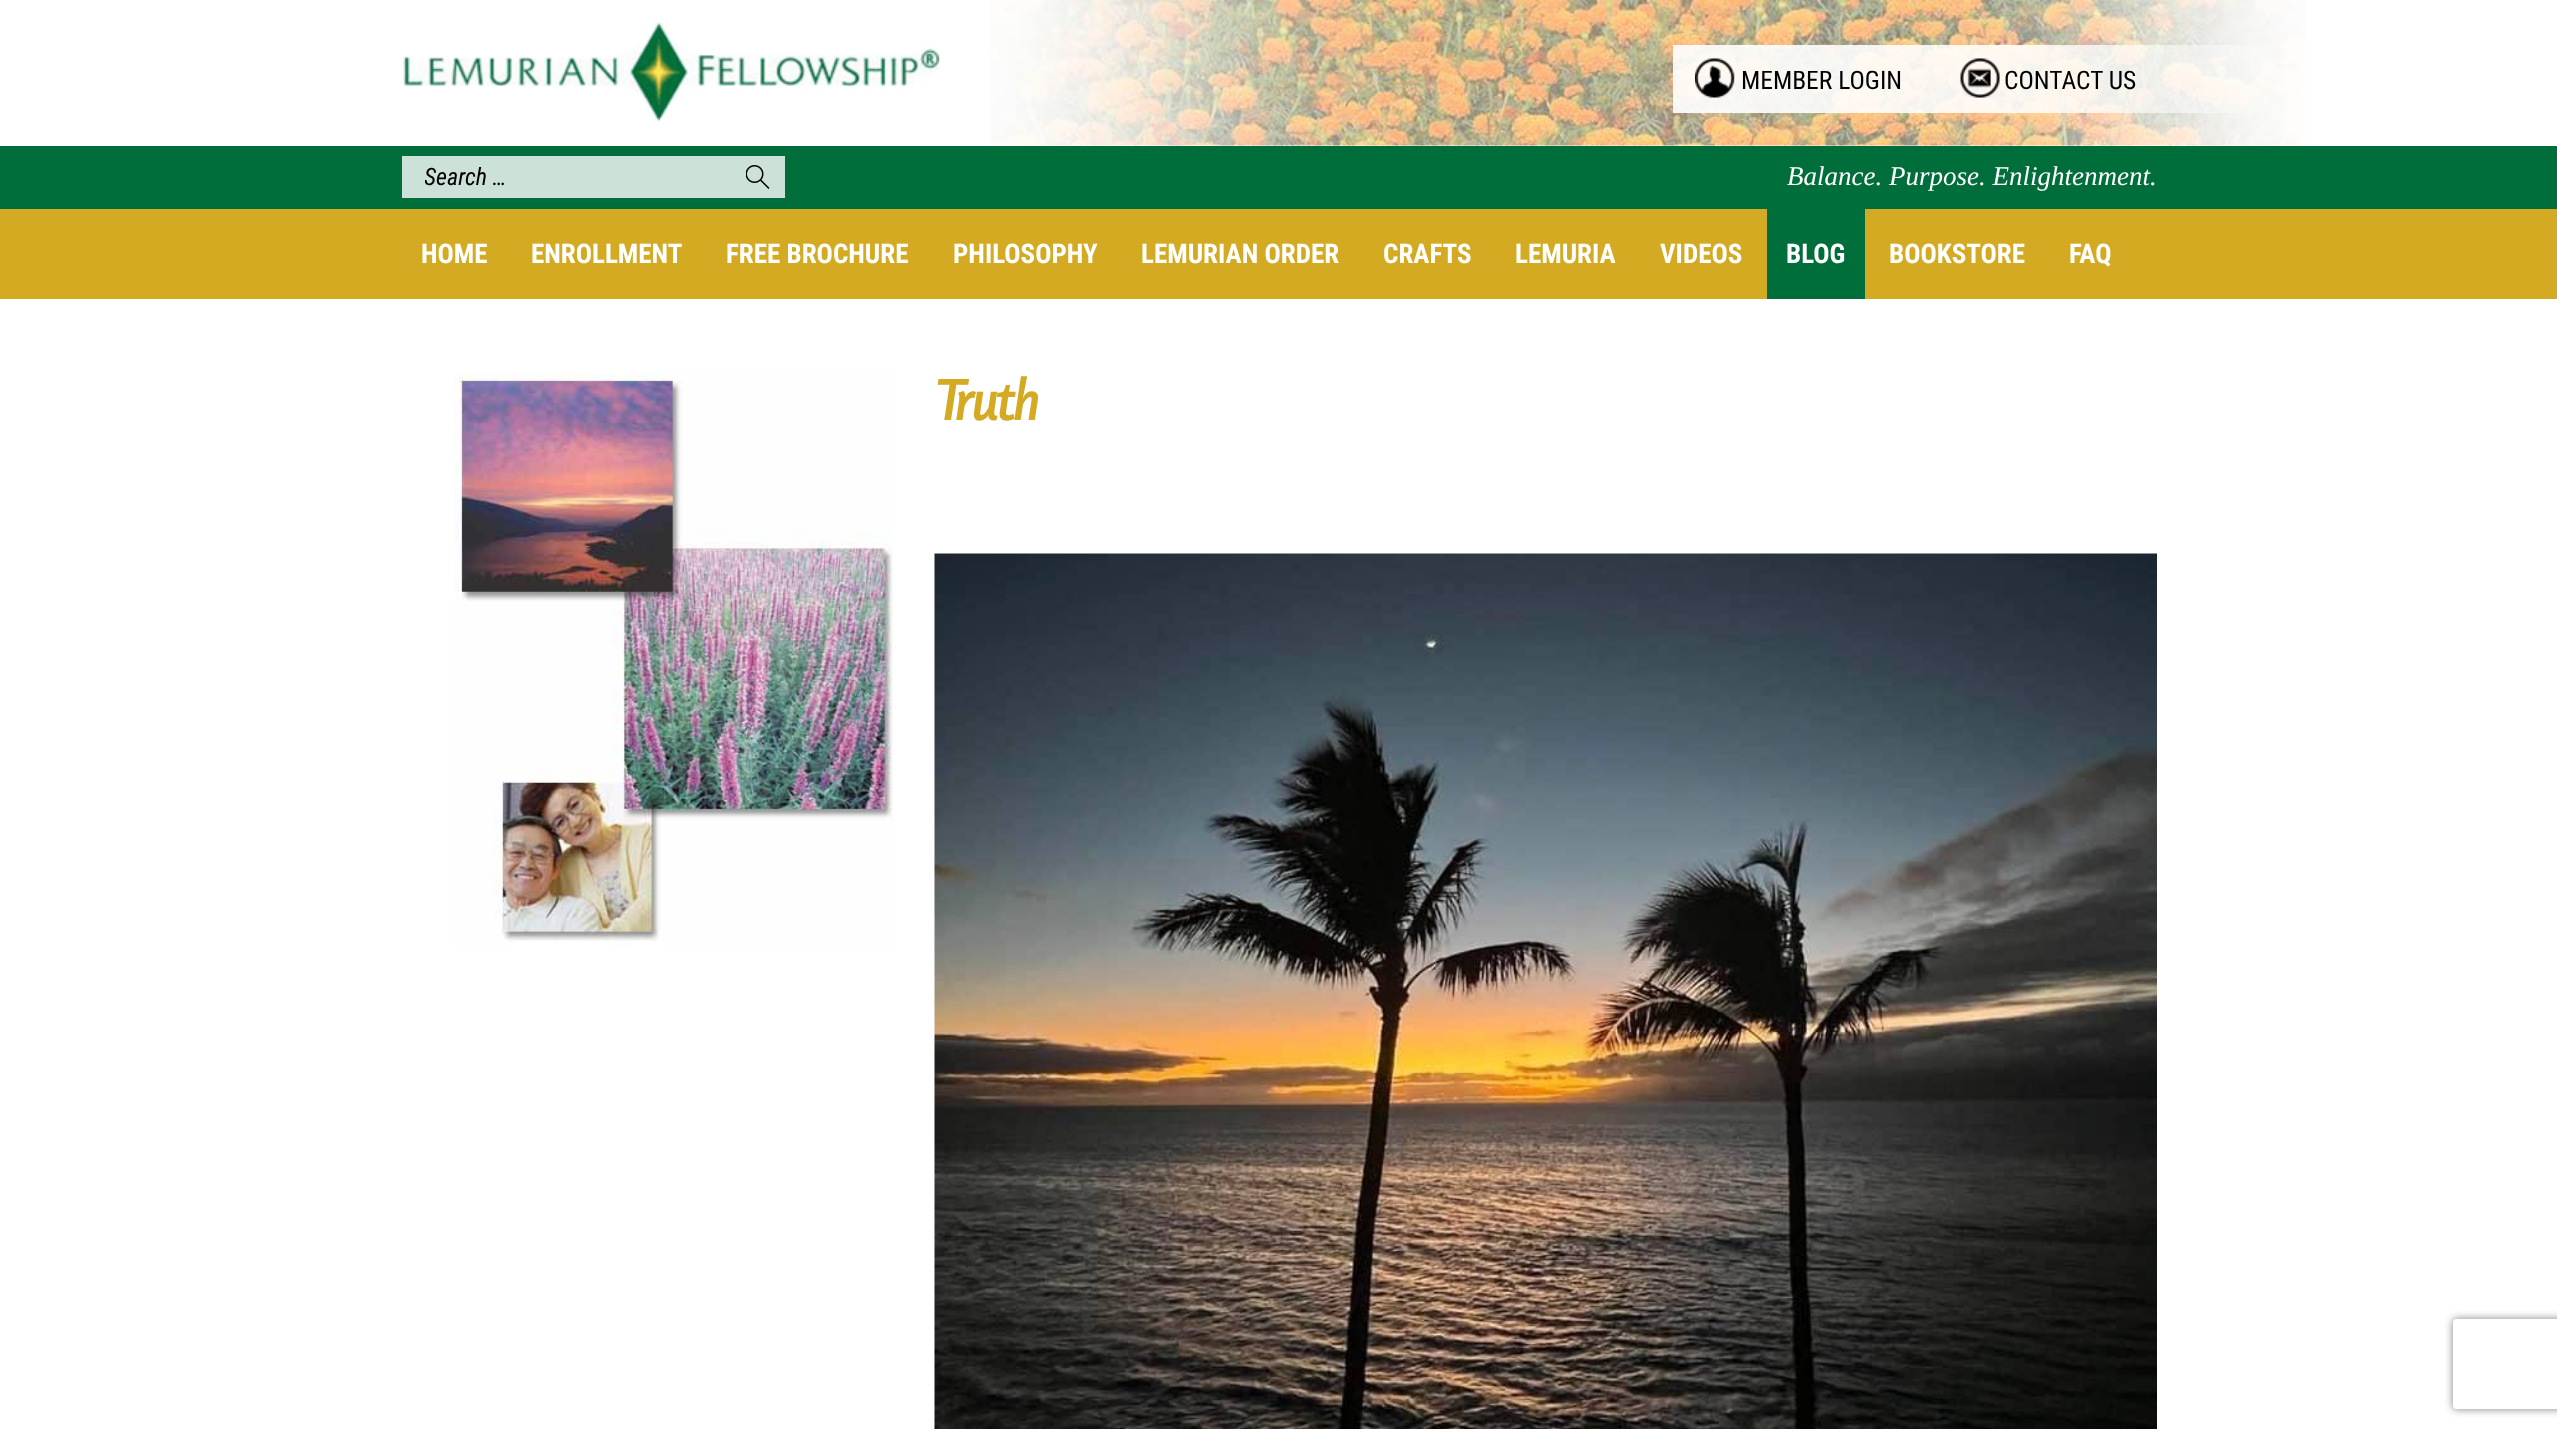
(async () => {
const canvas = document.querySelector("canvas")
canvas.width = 2557
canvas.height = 1429
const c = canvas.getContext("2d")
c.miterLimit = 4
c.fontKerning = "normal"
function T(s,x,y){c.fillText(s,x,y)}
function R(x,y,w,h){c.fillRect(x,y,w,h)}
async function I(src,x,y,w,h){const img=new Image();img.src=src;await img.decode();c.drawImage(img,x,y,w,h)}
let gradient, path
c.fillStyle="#fff"
R(0,0,2557,1429)
await I("1.png",990,0,1315,146)
await I("2.png",403,22,537,101)
gradient = c.createLinearGradient(1673,79,2423,79)
gradient.addColorStop(0,"#ffffffe8")
gradient.addColorStop(.41,"#ffffffe0")
gradient.addColorStop(.48,"#ffffffd9")
gradient.addColorStop(.5,"#ffffffd4")
gradient.addColorStop(.51,"#ffffffd4")
gradient.addColorStop(.52,"#ffffffcf")
gradient.addColorStop(.55,"#ffffffc4")
gradient.addColorStop(.56,"#ffffffc4")
gradient.addColorStop(.57,"#ffffffc2")
gradient.addColorStop(.58,"#ffffffb8")
gradient.addColorStop(.62,"#ffffffab")
gradient.addColorStop(.63,"#ffffffa3")
gradient.addColorStop(.68,"#ffffff85")
gradient.addColorStop(.69,"#ffffff7d")
gradient.addColorStop(.7,"#ffffff73")
gradient.addColorStop(.77,"#ffffff4a")
gradient.addColorStop(.83,"#ffffff2b")
gradient.addColorStop(.9,"#ffffff12")
gradient.addColorStop(1,"#ffffff05")
c.fillStyle = gradient
R(1673,45,597,68)
await I("3.png",1695,58,40,40)
c.font="25.5px Roboto Condensed"
c.fillStyle="#010101"
T("MEMBER LOGIN",1741,89)
await I("4.png",1960,58,40,40)
T("CONTACT US",2004,89)
c.fillStyle="#006e3b"
R(0,146,2557,63)
c.fillStyle="#cce2d8"
R(402,156,383,42)
c.save()
c.beginPath()
c.rect(425,164,285,28)
c.clip()
c.font="italic 24px Roboto Condensed"
c.fillStyle="#010101"
T("Search …",424,185)
c.restore()
await I("5.png",746,165,24,24)
c.font="italic 27px Liberation Serif"
c.fillStyle="#fff"
T("Balance. Purpose. Enlightenment.",1787,185)
c.fillStyle="#d4aa22"
R(0,209,2557,90)
c.font="bold 27px Roboto Condensed"
c.fillStyle="#fff"
T("HOME",421,263)
T("ENROLLMENT",531,263)
T("FREE BROCHURE",726,263)
T("PHILOSOPHY",953,263)
T("LEMURIAN ORDER",1141,263)
T("CRAFTS",1383,263)
T("LEMURIA",1515,263)
T("VIDEOS",1660,263)
c.fillStyle="#006e3b"
R(1767,209,98,90)
c.fillStyle="#fff"
T("BLOG",1786,263)
T("BOOKSTORE",1889,263)
T("FAQ",2069,263)
await I("6.png",454,373,439,574)
c.font="bold 60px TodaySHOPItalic"
c.fillStyle="#d4aa22"
T("Truth",934,420)
await I("7.png",934,553,1223,876)
c.save()
path = new Path2D("M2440 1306h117v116h-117zm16 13h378c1.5 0 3 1.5 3 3v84c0 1.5-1.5 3-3 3h-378c-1.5 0-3-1.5-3-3v-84c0-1.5 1.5-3 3-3z")
c.clip(path,"evenodd")
c.fillStyle="#808080"
c.filter="blur(4px)"
c.beginPath()
c.roundRect(2453,1319,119,90,3)
c.fill()
c.filter="none"
c.restore()
})()
